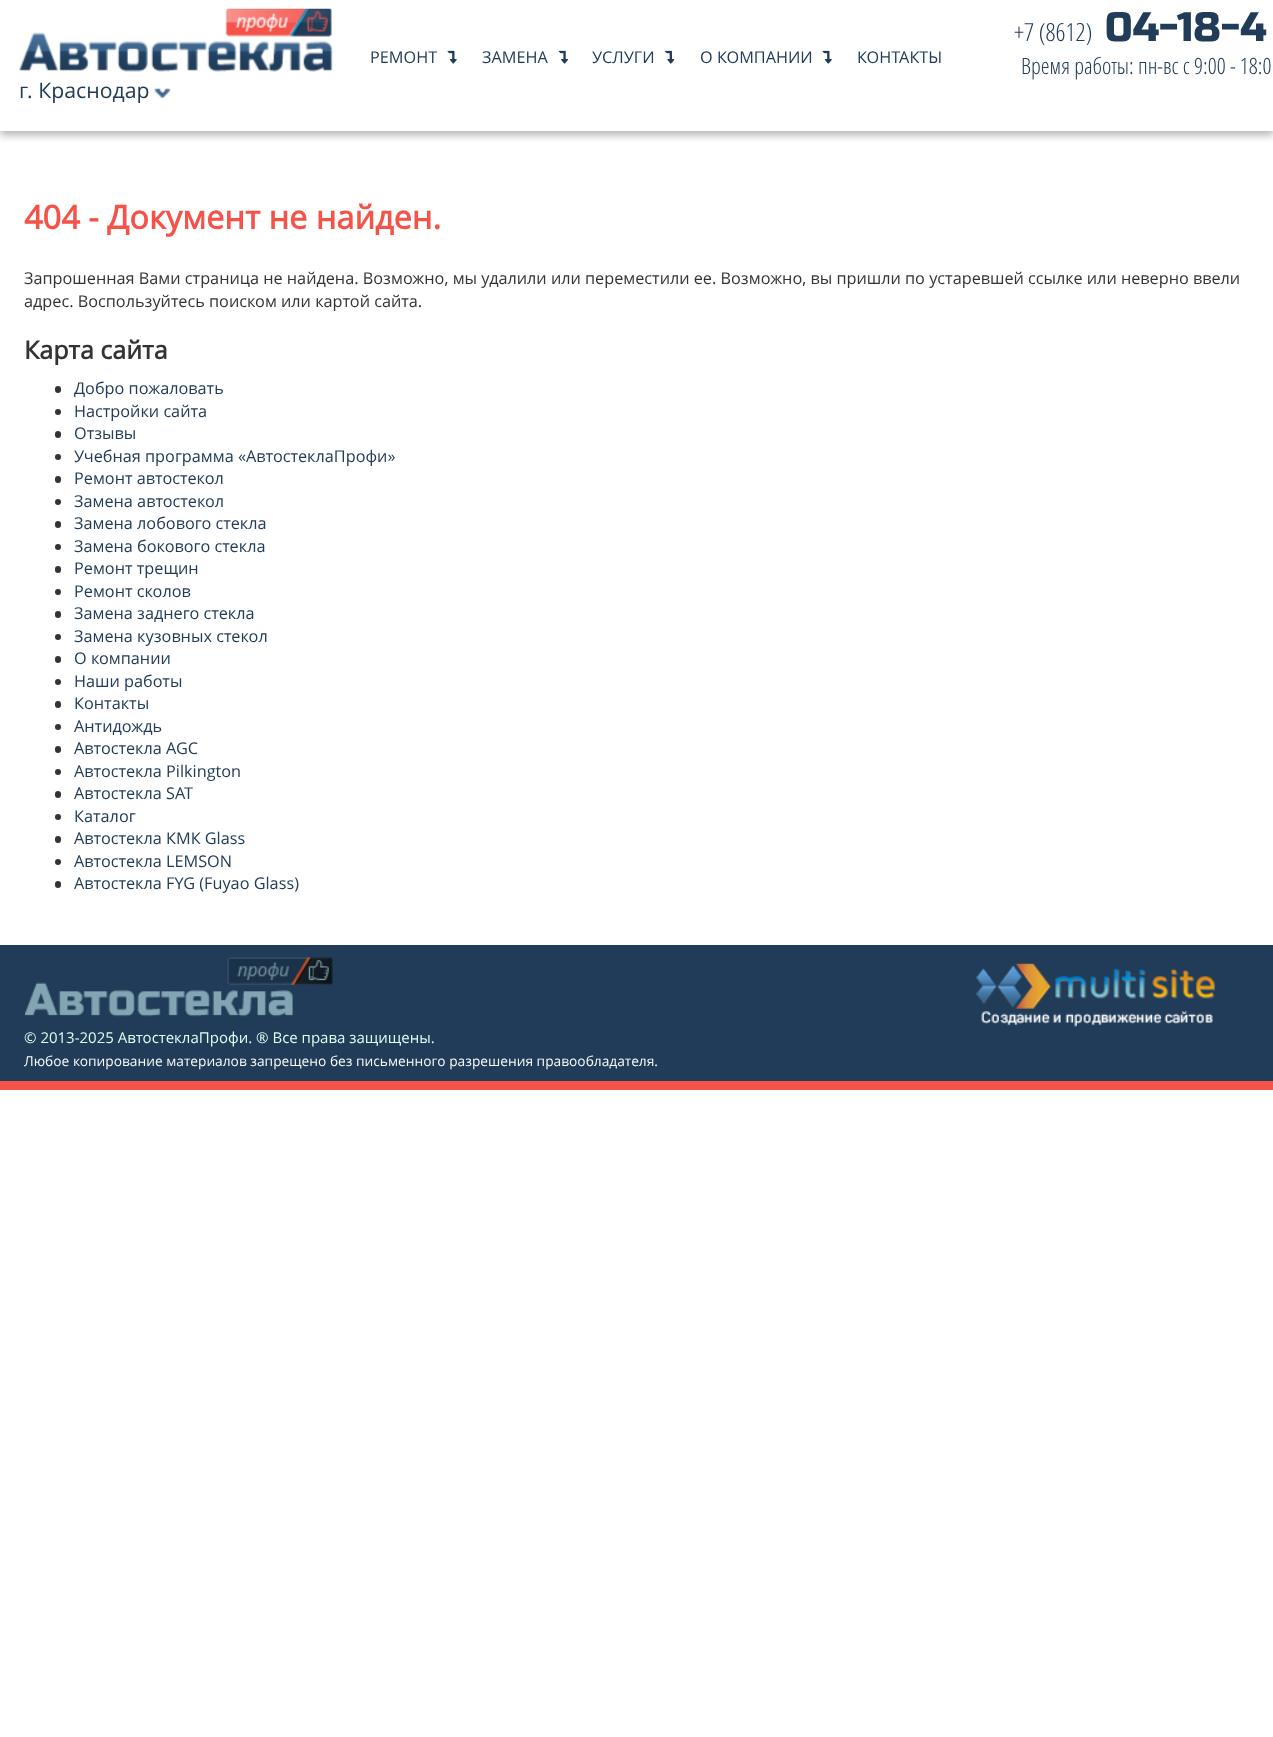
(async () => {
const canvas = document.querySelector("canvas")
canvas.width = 1273
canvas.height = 1737
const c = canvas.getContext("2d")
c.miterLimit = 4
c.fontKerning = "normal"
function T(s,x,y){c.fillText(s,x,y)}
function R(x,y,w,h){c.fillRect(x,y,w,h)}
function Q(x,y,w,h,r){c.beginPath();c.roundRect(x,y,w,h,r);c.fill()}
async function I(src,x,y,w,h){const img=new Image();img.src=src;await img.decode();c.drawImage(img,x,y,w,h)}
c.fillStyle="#fff"
R(0,0,1273,1737)
c.save()
c.beginPath()
c.rect(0,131,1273,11)
c.clip()
c.fillStyle="#64646480"
c.filter="blur(4px)"
c.beginPath()
c.rect(0,4,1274,131)
c.fill()
c.filter="none"
c.restore()
c.font="16.25px Open Sans"
c.fillStyle="#203c58"
T("РЕМОНТ",370,63)
await I("1.png",447,50,10,14)
T("ЗАМЕНА",482,63)
await I("2.png",558,50,10,14)
T("УСЛУГИ",592,63)
await I("3.png",665,50,10,14)
T("О КОМПАНИИ",700,63)
await I("1.png",822,50,10,14)
T("КОНТАКТЫ",857,63)
c.font="300 25px Open Sans"
T("+7 (8612)",1014,41)
c.font="41px Russo One"
T("04-18-4",1105,41)
c.font="300 22.5px Open Sans"
T("Время работы: пн-вс с 9:00 - 18:0",1021,74)
await I("4.png",18,8,315,64)
c.font="21.25px Open Sans"
T("г. Краснодар",19,98)
await I("5.png",154,88,17,10)
c.font="bold 32.5px Open Sans"
c.fillStyle="#f45349"
T("404 - Документ не найден.",24,229)
c.font="16.25px Open Sans"
c.fillStyle="#333"
T("Запрошенная Вами страница не найдена. Возможно, мы удалили или переместили ее. Возможно, вы пришли по устаревшей ссылке или неверно ввели",24,284)
T("адрес. Воспользуйтесь поиском или картой сайта.",24,307)
c.font="bold 25px Open Sans"
T("Карта сайта",24,359)
Q(55,386,6,7,3)
c.font="16.25px Open Sans"
c.fillStyle="#203c58"
T("Добро пожаловать",74,394)
c.fillStyle="#333"
c.beginPath()
c.arc(58,412,3,0,7)
c.fill()
c.fillStyle="#203c58"
T("Настройки сайта",74,417)
c.fillStyle="#333"
Q(55,431,6,7,3)
c.fillStyle="#203c58"
T("Отзывы",74,439)
c.fillStyle="#333"
c.beginPath()
c.arc(58,457,3,0,7)
c.fill()
c.fillStyle="#203c58"
T("Учебная программа «АвтостеклаПрофи»",74,462)
c.fillStyle="#333"
Q(55,476,6,7,3)
c.fillStyle="#203c58"
T("Ремонт автостекол",74,484)
c.fillStyle="#333"
c.beginPath()
c.arc(58,502,3,0,7)
c.fill()
c.fillStyle="#203c58"
T("Замена автостекол",74,507)
c.fillStyle="#333"
Q(55,521,6,7,3)
c.fillStyle="#203c58"
T("Замена лобового стекла",74,529)
c.fillStyle="#333"
c.beginPath()
c.arc(58,547,3,0,7)
c.fill()
c.fillStyle="#203c58"
T("Замена бокового стекла",74,552)
c.fillStyle="#333"
Q(55,566,6,7,3)
c.fillStyle="#203c58"
T("Ремонт трещин",74,574)
c.fillStyle="#333"
c.beginPath()
c.arc(58,592,3,0,7)
c.fill()
c.fillStyle="#203c58"
T("Ремонт сколов",74,597)
c.fillStyle="#333"
Q(55,611,6,7,3)
c.fillStyle="#203c58"
T("Замена заднего стекла",74,619)
c.fillStyle="#333"
c.beginPath()
c.arc(58,637,3,0,7)
c.fill()
c.fillStyle="#203c58"
T("Замена кузовных стекол",74,642)
c.fillStyle="#333"
Q(55,656,6,7,3)
c.fillStyle="#203c58"
T("О компании",74,664)
c.fillStyle="#333"
c.beginPath()
c.arc(58,682,3,0,7)
c.fill()
c.fillStyle="#203c58"
T("Наши работы",74,687)
c.fillStyle="#333"
Q(55,701,6,7,3)
c.fillStyle="#203c58"
T("Контакты",74,709)
c.fillStyle="#333"
c.beginPath()
c.arc(58,727,3,0,7)
c.fill()
c.fillStyle="#203c58"
T("Антидождь",74,732)
c.fillStyle="#333"
Q(55,746,6,7,3)
c.fillStyle="#203c58"
T("Автостекла AGC",74,754)
c.fillStyle="#333"
c.beginPath()
c.arc(58,772,3,0,7)
c.fill()
c.fillStyle="#203c58"
T("Автостекла Pilkington",74,777)
c.fillStyle="#333"
Q(55,791,6,7,3)
c.fillStyle="#203c58"
T("Автостекла SAT",74,799)
c.fillStyle="#333"
c.beginPath()
c.arc(58,817,3,0,7)
c.fill()
c.fillStyle="#203c58"
T("Каталог",74,822)
c.fillStyle="#333"
Q(55,836,6,7,3)
c.fillStyle="#203c58"
T("Автостекла КМК Glass",74,844)
c.fillStyle="#333"
c.beginPath()
c.arc(58,862,3,0,7)
c.fill()
c.fillStyle="#203c58"
T("Автостекла LEMSON",74,867)
c.fillStyle="#333"
Q(55,881,6,7,3)
c.fillStyle="#203c58"
T("Автостекла FYG (Fuyao Glass)",74,889)
R(0,945,1273,136)
c.fillStyle="#f45349"
R(0,1081,1273,9)
await I("6.png",25,957,308,60)
await I("7.png",976,963,239,64)
c.font="15px Open Sans"
c.fillStyle="#dcfff4"
T("© 2013-2025 АвтостеклаПрофи. ® Все права защищены.",24,1043)
c.font="13.75px Open Sans"
c.fillStyle="#fafafa"
T("Любое копирование материалов запрещено без письменного разрешения правообладателя.",24,1066)
})()
